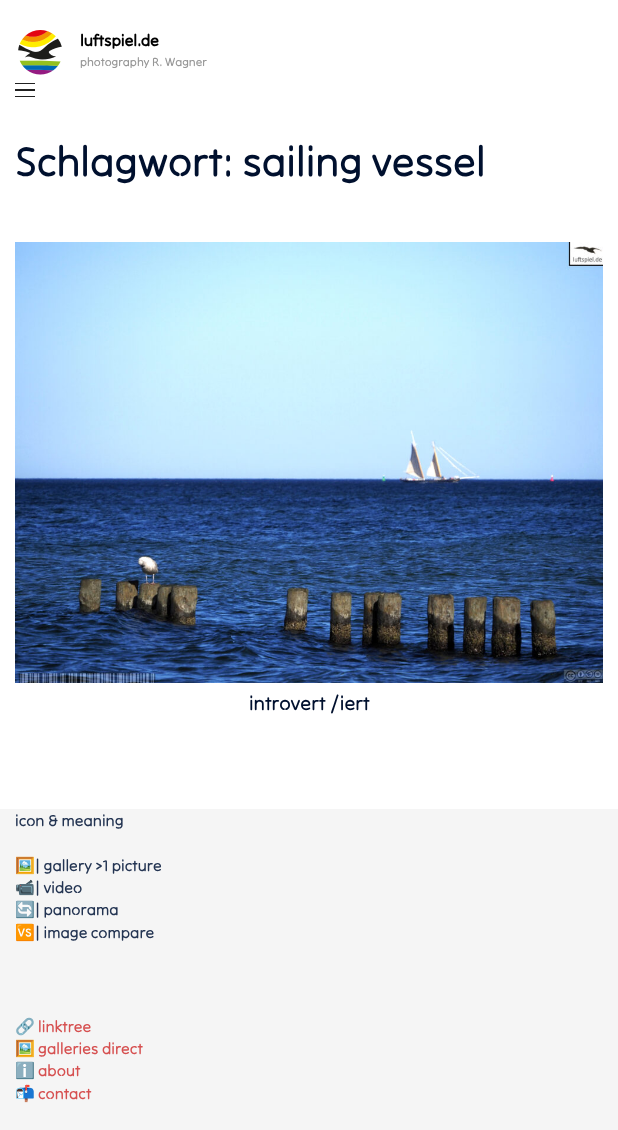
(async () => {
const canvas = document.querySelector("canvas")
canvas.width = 618
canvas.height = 1130
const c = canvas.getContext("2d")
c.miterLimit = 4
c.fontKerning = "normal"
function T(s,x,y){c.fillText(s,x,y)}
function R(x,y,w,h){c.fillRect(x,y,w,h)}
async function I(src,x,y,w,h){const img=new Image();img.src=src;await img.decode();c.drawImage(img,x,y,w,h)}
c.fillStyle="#fff"
R(0,0,618,1130)
await I("1.png",18,30,44,45)
c.font="bold 16px Tilt Neon"
c.fillStyle="#000"
T("luftspiel.de",80,46)
c.font="12px Tilt Neon"
c.fillStyle="#979797"
T("photography R. Wagner",80,66)
c.fillStyle="#212121"
R(15,83,20,1)
R(15,89,20,2)
R(15,96,20,1)
c.font="42px Tilt Neon"
c.fillStyle="#00102e"
T("Schlagwort: sailing vessel",15,176)
await I("2.png",15,242,588,441)
c.font="20px Tilt Neon"
T("introvert /iert",249,710)
c.fillStyle="#f5f5f5"
R(0,809,618,321)
c.font="16px Tilt Neon"
c.fillStyle="#233452"
T("icon & meaning",15,826)
c.font="16px Noto Color Emoji"
T("🖼️",15,871)
c.font="16px Tilt Neon"
T("| gallery >1 picture",35,871)
c.font="16px Noto Color Emoji"
T("📹",15,893)
c.font="16px Tilt Neon"
T("| video",35,893)
c.font="16px Noto Color Emoji"
T("🔄",15,915)
c.font="16px Tilt Neon"
T("| panorama",35,915)
c.font="16px Noto Color Emoji"
T("🆚",15,938)
c.font="16px Tilt Neon"
T("| image compare",35,938)
c.font="16px Noto Color Emoji"
T("🔗",15,1032)
c.font="16px Tilt Neon"
c.fillStyle="#d65050"
T("linktree",38,1032)
c.font="16px Noto Color Emoji"
c.fillStyle="#233452"
T("🖼️",15,1054)
c.font="16px Tilt Neon"
c.fillStyle="#d65050"
T("galleries direct",38,1054)
c.font="16px Noto Color Emoji"
c.fillStyle="#233452"
T("ℹ️",15,1076)
c.font="16px Tilt Neon"
c.fillStyle="#d65050"
T("about",38,1076)
c.font="16px Noto Color Emoji"
c.fillStyle="#233452"
T("📬",15,1099)
c.font="16px Tilt Neon"
c.fillStyle="#d65050"
T("contact",38,1099)
})()
